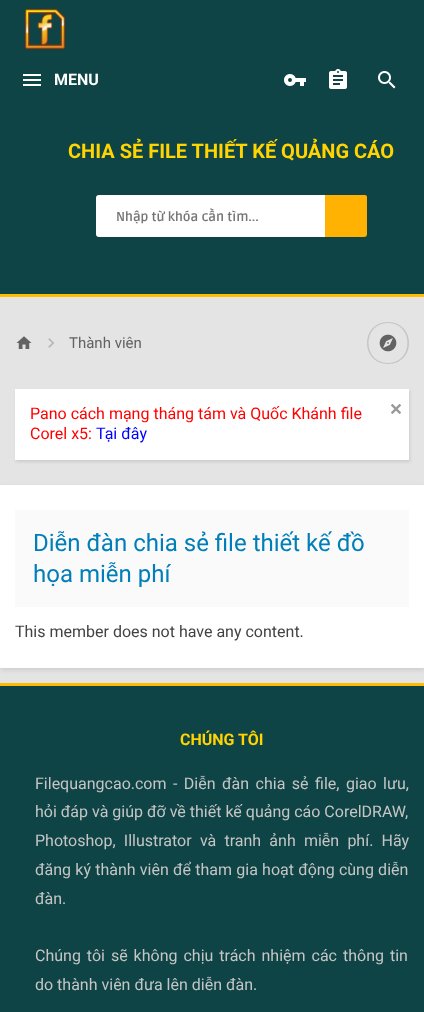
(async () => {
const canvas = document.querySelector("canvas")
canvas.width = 424
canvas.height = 1012
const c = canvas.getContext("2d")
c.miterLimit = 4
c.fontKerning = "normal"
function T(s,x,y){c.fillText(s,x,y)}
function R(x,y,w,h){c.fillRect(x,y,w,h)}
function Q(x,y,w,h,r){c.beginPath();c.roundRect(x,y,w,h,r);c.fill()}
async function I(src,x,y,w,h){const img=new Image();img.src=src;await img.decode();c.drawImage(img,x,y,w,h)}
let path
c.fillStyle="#e4e4e4"
R(0,0,424,1012)
c.fillStyle="#0f4446"
R(0,0,424,294)
await I("1.png",25,9,40,40)
await I("2.png",23,74,18,12)
c.font="bold 16px Roboto"
c.fillStyle="#fff"
T("MENU",54,85)
await I("3.png",284,74,22,12)
await I("4.png",329,69,18,20)
await I("5.png",378,71,18,18)
c.fillStyle="#ffbc00"
R(0,294,424,3)
c.font="bold 20px Roboto"
c.fillStyle="#ffd400"
T("CHIA SẺ FILE THIẾT KẾ QUẢNG CÁO",68,158)
c.fillStyle="#fff"
c.beginPath()
c.roundRect(96,195,268,42,[3,0,0,3])
c.fill()
c.font="bold 13px Ruda"
c.fillStyle="#757575"
T("Nhập từ khóa cần tìm...",116,221)
c.fillStyle="#ffb202"
c.beginPath()
c.roundRect(325,195,42,42,[0,2,3,0])
c.fill()
await I("6.png",16,336,16,13)
await I("7.png",48,338,6,10)
c.font="15px Roboto"
c.fillStyle="#626262"
T("Thành viên",69,348)
c.fillStyle="#c5c5c5"
path = new Path2D("M388 322c28 0 28 42 0 42c-28 0-28-42 0-42zm0 1c-26 0-26 40 0 40c26 0 26-40 0-40z")
c.fill(path,"evenodd")
await I("8.png",379,334,18,18)
c.fillStyle="#0000001a"
c.filter="blur(1.5px)"
c.beginPath()
c.rect(16,391,394,71)
c.fill()
c.filter="none"
c.fillStyle="#fff"
R(15,389,394,71)
c.font="16px Roboto"
c.fillStyle="#f00"
T("Pano cách mạng tháng tám và Quốc Khánh file",30,419)
T("Corel x5:",30,439)
c.fillStyle="#00f"
T("Tại đây",96,439)
await I("9.png",391,404,10,10)
c.fillStyle="#0000001a"
c.filter="blur(2.5px)"
c.beginPath()
c.roundRect(1,487,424,183,1)
c.fill()
c.filter="none"
c.fillStyle="#fff"
Q(0,485,424,183,1)
c.fillStyle="#fafafa"
R(15,510,394,97)
c.font="24px Roboto"
c.fillStyle="#007eb9"
T("Diễn đàn chia sẻ file thiết kế đồ",33,551)
T("họa miễn phí",33,582)
c.font="16px Roboto"
c.fillStyle="#424242"
T("This member does not have any content.",15,637)
c.fillStyle="#0f4446"
R(0,686,424,326)
c.fillStyle="#ffbc00"
R(0,683,424,3)
c.font="bold 16px Roboto"
c.fillStyle="#ffd400"
T("CHÚNG TÔI",180,745)
c.wordSpacing="2.5px"
c.font="16px Roboto"
c.fillStyle="#c5c5c5"
T("Filequangcao.com - Diễn đàn chia sẻ file, giao lưu,",35,789)
c.wordSpacing="0px"
T("hỏi đáp và giúp đỡ về thiết kế quảng cáo CorelDRAW,",35,817)
c.wordSpacing="4.25px"
T("Photoshop, Illustrator và tranh ảnh miễn phí. Hãy",35,846)
c.wordSpacing="0.25px"
T("đăng ký thành viên để tham gia hoạt động cùng diễn",35,875)
c.wordSpacing="0px"
T("đàn.",35,904)
c.wordSpacing="2px"
T("Chúng tôi sẽ không chịu trách nhiệm các thông tin",35,961)
c.wordSpacing="0px"
T("do thành viên đưa lên diễn đàn.",35,990)
})()
